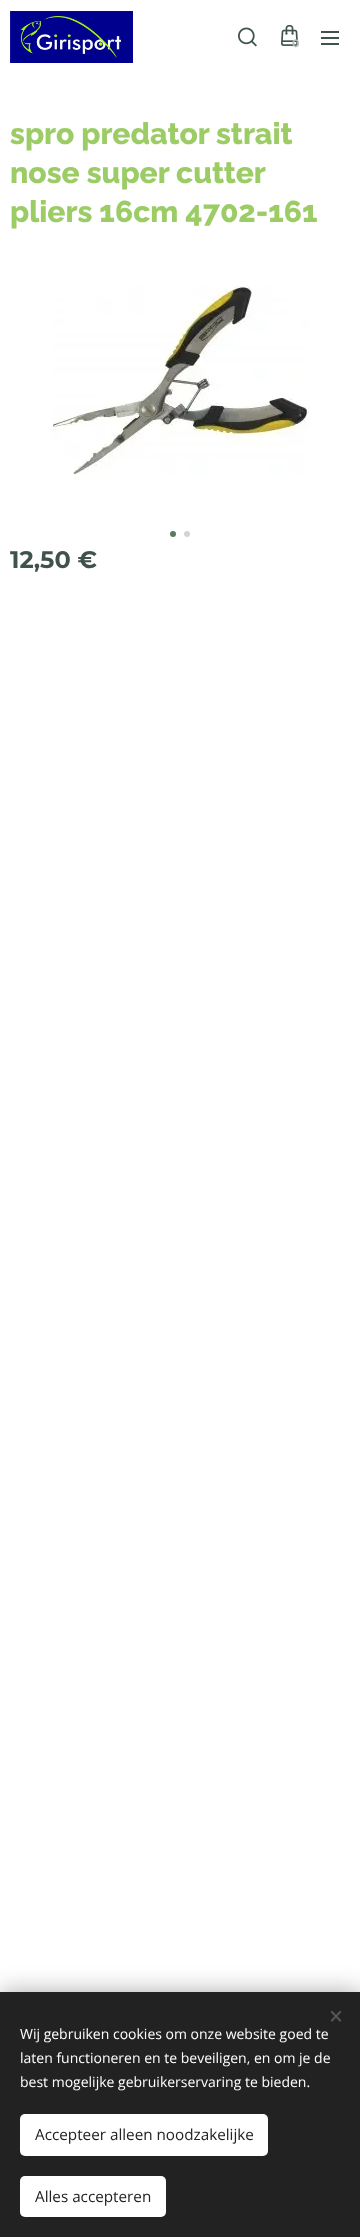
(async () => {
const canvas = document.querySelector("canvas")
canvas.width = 360
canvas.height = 2237
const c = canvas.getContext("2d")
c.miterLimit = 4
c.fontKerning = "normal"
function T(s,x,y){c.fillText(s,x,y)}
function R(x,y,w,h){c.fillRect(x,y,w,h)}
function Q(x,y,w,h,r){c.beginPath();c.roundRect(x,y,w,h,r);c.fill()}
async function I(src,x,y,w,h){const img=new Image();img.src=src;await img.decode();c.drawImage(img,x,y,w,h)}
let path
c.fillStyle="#fff"
R(0,0,360,2237)
await I("1.png",10,11,123,52)
await I("2.png",238,27,19,20)
await I("3.png",281,24,17,22)
c.font="bold 11px Montserrat"
c.fillStyle="#b5bcba"
T("0",292,47)
c.fillStyle="#3f524c"
R(321,37,18,2)
R(321,31,18,2)
R(321,43,18,2)
c.font="800 30px Raleway"
c.fillStyle="#9ccc65"
T("spro predator strait",10,144)
T("nose super cutter",10,183)
T("pliers 16cm 4702-161",10,222)
await I("4.png",52,286,257,188)
c.fillStyle="#5a7b5e"
c.beginPath()
c.arc(173,534,3,0,7)
c.fill()
c.fillStyle="#d4d4d4"
c.beginPath()
c.arc(187,534,3,0,7)
c.fill()
c.font="bold 24px Montserrat"
c.fillStyle="#3f524c"
T("12,50 €",10,568)
c.fillStyle="#00000054"
c.filter="blur(12.5px)"
c.beginPath()
c.rect(0,1992,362,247)
c.fill()
c.filter="none"
c.fillStyle="#222"
R(0,1992,360,245)
c.fillStyle="#555"
path = new Path2D("M330.5 2020.5l9.5-10l1.5 1.5l-9.5 10z")
c.fill(path)
path = new Path2D("M332 2010.5l9.5 10l-1.5 1.5l-9.5-10z")
c.fill(path)
c.font="14px Open Sans"
c.fillStyle="#fff"
T("Wij gebruiken cookies om onze website goed te",20,2039)
T("laten functioneren en te beveiligen, en om je de",20,2063)
T("best mogelijke gebruikerservaring te bieden.",20,2087)
Q(20,2114,248,42,5)
c.font="15.25px Open Sans"
c.fillStyle="#222"
T("Accepteer alleen noodzakelijke",35,2140)
c.fillStyle="#fff"
Q(20,2176,146,41,5)
c.fillStyle="#222"
T("Alles accepteren",35,2202)
})()
